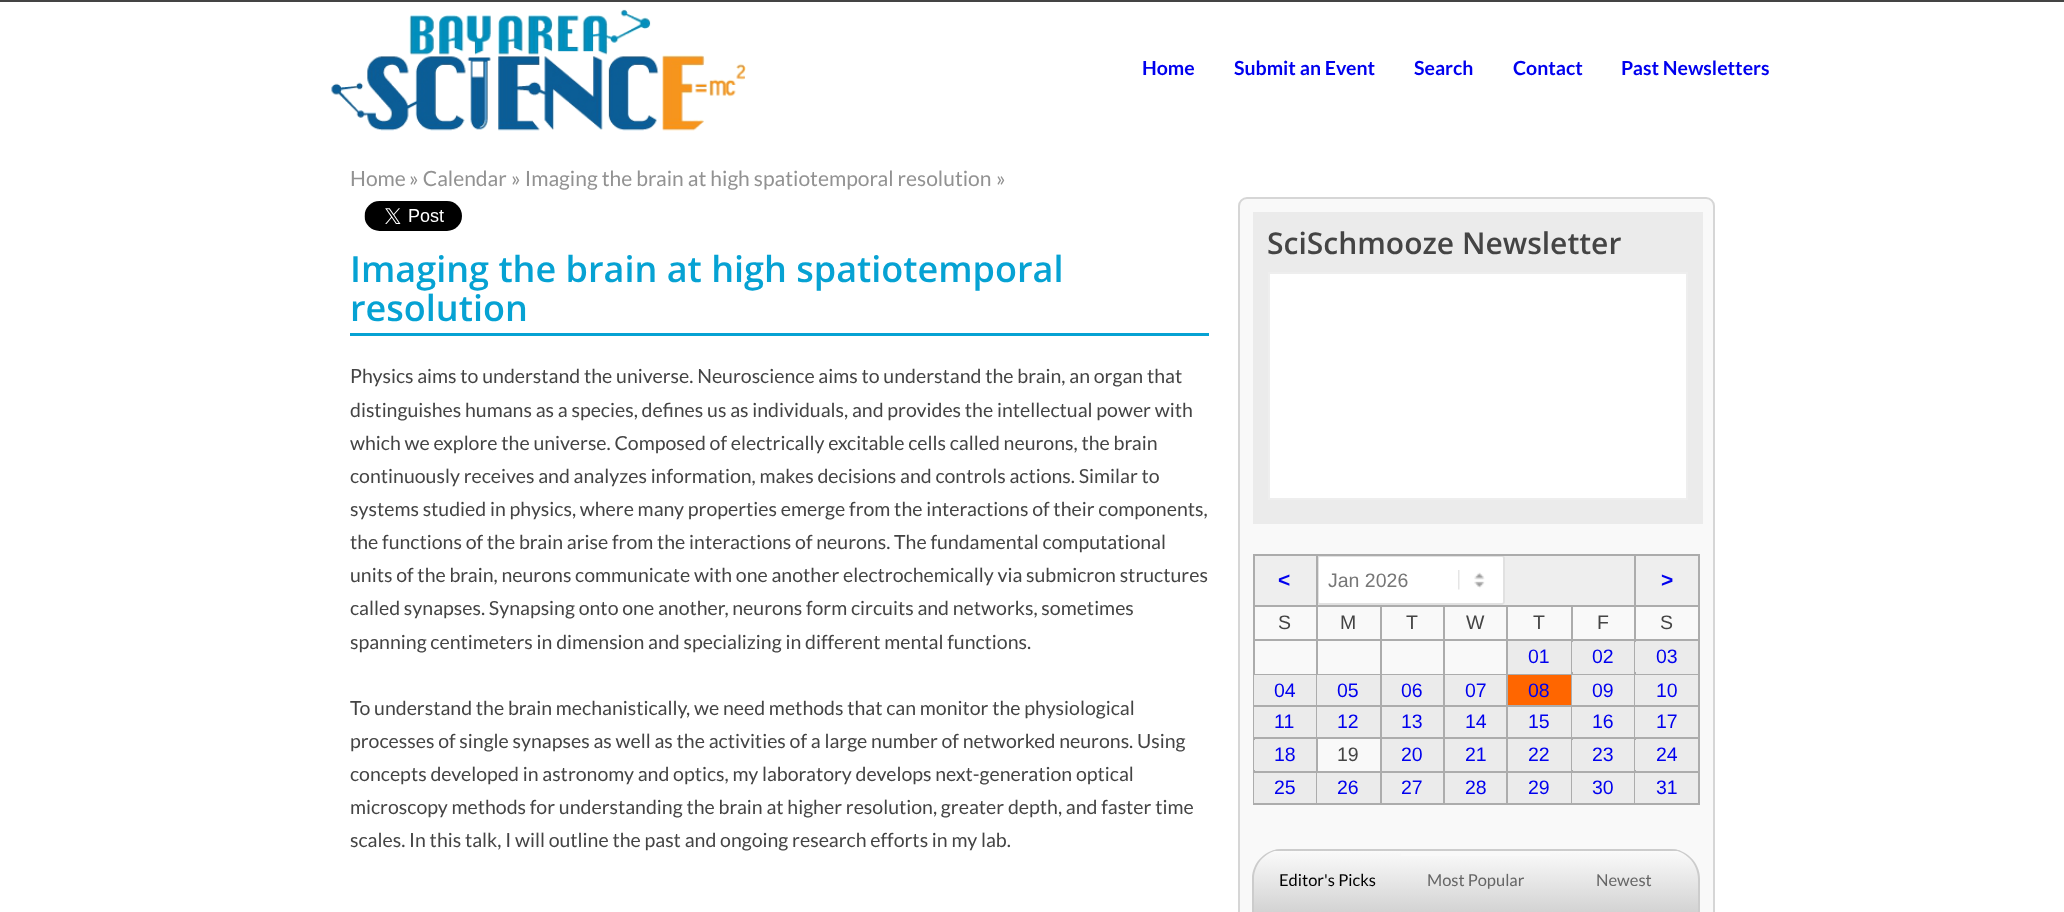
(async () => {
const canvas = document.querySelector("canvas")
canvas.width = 2064
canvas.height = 912
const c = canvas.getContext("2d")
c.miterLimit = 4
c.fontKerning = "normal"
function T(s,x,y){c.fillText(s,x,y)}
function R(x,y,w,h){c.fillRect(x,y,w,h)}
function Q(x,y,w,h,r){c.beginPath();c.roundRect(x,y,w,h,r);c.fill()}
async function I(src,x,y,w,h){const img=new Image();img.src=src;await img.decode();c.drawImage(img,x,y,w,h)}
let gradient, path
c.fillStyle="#fff"
R(0,0,2064,912)
c.fillStyle="#444"
R(0,0,2064,2)
await I("1.png",331,9,415,122)
c.font="bold 19.5px Lato"
c.fillStyle="#00e"
T("Home",1142,75)
T("Submit an Event",1234,75)
T("Search",1414,75)
T("Contact",1513,75)
T("Past Newsletters",1621,75)
c.font="21px Lato"
c.fillStyle="#929292"
T("Home",350,186)
T("» Calendar",409,186)
T("» Imaging the brain at high spatiotemporal resolution",511,186)
T("»",996,186)
await I("2.png",364,201,98,30)
c.fillStyle="#06a2d3"
R(350,333,859,3)
c.font="600 36px Open Sans"
T("Imaging the brain at high spatiotemporal",350,282)
T("resolution",350,321)
c.font="19.5px Lato"
c.fillStyle="#444"
T("Physics aims to understand the universe. Neuroscience aims to understand the brain, an organ that",350,383)
T("distinguishes humans as a species, defines us as individuals, and provides the intellectual power with",350,417)
T("which we explore the universe. Composed of electrically excitable cells called neurons, the brain",350,450)
T("continuously receives and analyzes information, makes decisions and controls actions. Similar to",350,483)
T("systems studied in physics, where many properties emerge from the interactions of their components,",350,516)
T("the functions of the brain arise from the interactions of neurons. The fundamental computational",350,549)
T("units of the brain, neurons communicate with one another electrochemically via submicron structures",350,582)
T("called synapses. Synapsing onto one another, neurons form circuits and networks, sometimes",350,615)
T("spanning centimeters in dimension and specializing in different mental functions.",350,649)
T("To understand the brain mechanistically, we need methods that can monitor the physiological",350,715)
T("processes of single synapses as well as the activities of a large number of networked neurons. Using",350,748)
T("concepts developed in astronomy and optics, my laboratory develops next-generation optical",350,781)
T("microscopy methods for understanding the brain at higher resolution, greater depth, and faster time",350,814)
T("scales. In this talk, I will outline the past and ongoing research efforts in my lab.",350,847)
c.fillStyle="#f9f9f9"
c.beginPath()
c.roundRect(1239,198,475,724,8)
c.fill()
c.strokeStyle="#d6d6d6"
c.lineWidth=2
c.stroke()
c.fillStyle="#ebebeb"
R(1253,212,450,312)
c.font="600 30px Open Sans"
c.fillStyle="#444"
T("SciSchmooze Newsletter",1267,254)
c.fillStyle="#fff"
c.beginPath()
c.rect(1269,273,418,226)
c.fill()
c.strokeStyle="#eee"
c.stroke()
c.fillStyle="#eee"
R(1255,556,61,49)
R(1318,556,316,49)
c.fillStyle="#fff"
Q(1317,555,188,50,3)
await I("3.png",1458,570,27,20)
c.beginPath()
c.roundRect(1318,556,186,48,2)
c.strokeStyle="#e1e1e1"
c.stroke()
c.fillStyle="#acacac"
R(1634,554,66,2)
R(1634,605,66,2)
R(1634,639,66,2)
R(1634,674,66,1)
R(1634,705,66,2)
R(1634,737,66,2)
R(1634,771,66,2)
R(1698,771,2,33)
R(1634,803,66,2)
R(1634,771,2,33)
R(1571,771,64,2)
R(1634,737,2,36)
R(1571,737,64,2)
R(1634,705,2,33)
R(1571,705,64,2)
R(1634,674,2,33)
R(1571,674,64,2)
R(1634,639,2,36)
R(1571,639,64,2)
R(1634,605,2,36)
R(1571,605,64,2)
R(1634,554,2,52)
R(1316,554,319,2)
R(1571,803,64,2)
R(1571,771,2,33)
R(1506,771,66,2)
R(1571,737,2,36)
R(1506,737,66,2)
R(1571,705,2,33)
R(1506,705,66,2)
R(1571,674,2,33)
R(1506,674,66,2)
R(1571,639,2,36)
R(1506,639,66,2)
R(1571,605,2,36)
R(1506,605,66,2)
R(1506,803,66,2)
R(1506,771,2,33)
R(1443,771,65,2)
R(1506,737,2,36)
R(1443,737,65,2)
R(1506,705,2,33)
R(1443,705,65,2)
R(1506,674,2,33)
R(1443,674,65,2)
R(1506,639,2,36)
R(1443,639,65,2)
R(1506,605,2,36)
R(1443,605,65,2)
R(1443,803,65,2)
R(1443,771,2,33)
R(1380,771,65,2)
R(1443,737,2,36)
R(1380,737,65,2)
R(1443,705,2,33)
R(1380,705,65,2)
R(1443,674,2,33)
R(1380,674,65,2)
R(1443,639,2,36)
R(1380,639,65,2)
R(1443,605,2,36)
R(1380,605,65,2)
R(1380,803,65,2)
R(1380,771,2,33)
R(1316,771,66,2)
R(1380,737,2,36)
R(1316,737,66,2)
R(1380,705,2,33)
R(1316,705,66,2)
R(1380,674,2,33)
R(1316,674,66,2)
R(1380,639,2,36)
R(1316,639,66,2)
R(1380,605,2,36)
R(1316,605,66,2)
R(1316,803,66,2)
R(1316,771,2,33)
R(1253,771,64,2)
R(1316,737,2,36)
R(1253,737,64,2)
R(1316,705,2,33)
R(1253,705,64,2)
R(1316,674,2,33)
R(1253,674,64,2)
R(1316,639,2,36)
R(1253,639,64,2)
R(1316,605,2,36)
R(1253,605,64,2)
R(1316,554,2,52)
R(1253,554,64,2)
R(1253,803,64,2)
R(1253,771,2,33)
R(1253,737,2,36)
R(1253,705,2,33)
R(1253,674,2,33)
R(1253,639,2,36)
R(1253,605,2,36)
R(1253,554,2,52)
c.font="bold 21px Liberation Sans"
c.fillStyle="#00e"
T("<",1278,587)
c.font="19.5px Liberation Sans"
c.fillStyle="#777"
T("Jan 2026",1328,587)
c.fillStyle="#eee"
R(1636,556,62,49)
c.fillStyle="#acacac"
R(1698,737,2,36)
R(1698,705,2,33)
R(1698,674,2,33)
R(1698,639,2,36)
R(1698,605,2,36)
R(1698,554,2,52)
c.font="bold 21px Liberation Sans"
c.fillStyle="#00e"
T(">",1661,587)
c.font="19.5px Liberation Sans"
c.fillStyle="#444"
T("S",1278,629)
T("M",1340,629)
T("T",1406,629)
T("W",1466,629)
T("T",1533,629)
T("F",1597,629)
T("S",1660,629)
c.fillStyle="#ebebeb"
R(1508,641,63,33)
c.fillStyle="#00e"
T("01",1528,663)
c.fillStyle="#ebebeb"
R(1573,641,61,33)
R(1572,642,1,30)
c.fillStyle="#00e"
T("02",1592,663)
c.fillStyle="#ebebeb"
R(1636,641,62,33)
R(1635,642,1,30)
c.fillStyle="#00e"
T("03",1656,663)
c.fillStyle="#ebebeb"
R(1254,675,62,30)
c.fillStyle="#00e"
T("04",1274,697)
c.fillStyle="#ebebeb"
R(1317,675,63,30)
c.fillStyle="#00e"
T("05",1337,697)
c.fillStyle="#ebebeb"
R(1382,675,61,30)
c.fillStyle="#00e"
T("06",1401,697)
c.fillStyle="#ebebeb"
R(1445,675,61,30)
c.fillStyle="#00e"
T("07",1465,697)
c.fillStyle="#f60"
R(1508,675,63,30)
c.fillStyle="#00e"
T("08",1528,697)
c.fillStyle="#ebebeb"
R(1572,675,62,30)
c.fillStyle="#00e"
T("09",1592,697)
c.fillStyle="#ebebeb"
R(1635,675,63,30)
c.fillStyle="#00e"
T("10",1656,697)
c.fillStyle="#ebebeb"
R(1254,707,62,30)
c.fillStyle="#00e"
T("11",1274,728)
c.fillStyle="#ebebeb"
R(1317,707,63,30)
c.fillStyle="#00e"
T("12",1337,728)
c.fillStyle="#ebebeb"
R(1382,707,61,30)
c.fillStyle="#00e"
T("13",1401,728)
c.fillStyle="#ebebeb"
R(1445,707,61,30)
c.fillStyle="#00e"
T("14",1465,728)
c.fillStyle="#ebebeb"
R(1508,707,63,30)
c.fillStyle="#00e"
T("15",1528,728)
c.fillStyle="#ebebeb"
R(1572,707,62,30)
c.fillStyle="#00e"
T("16",1592,728)
c.fillStyle="#ebebeb"
R(1635,707,63,30)
c.fillStyle="#00e"
T("17",1656,728)
c.fillStyle="#ebebeb"
R(1255,739,61,32)
R(1254,740,1,30)
c.fillStyle="#00e"
T("18",1274,761)
c.fillStyle="#444"
T("19",1337,761)
c.fillStyle="#ebebeb"
R(1382,739,61,32)
c.fillStyle="#00e"
T("20",1401,761)
c.fillStyle="#ebebeb"
R(1445,739,61,32)
c.fillStyle="#00e"
T("21",1465,761)
c.fillStyle="#ebebeb"
R(1508,739,63,32)
c.fillStyle="#00e"
T("22",1528,761)
c.fillStyle="#ebebeb"
R(1573,739,61,32)
R(1572,740,1,30)
c.fillStyle="#00e"
T("23",1592,761)
c.fillStyle="#ebebeb"
R(1636,739,62,32)
R(1635,740,1,30)
c.fillStyle="#00e"
T("24",1656,761)
c.fillStyle="#ebebeb"
R(1254,773,62,30)
c.fillStyle="#00e"
T("25",1274,794)
c.fillStyle="#ebebeb"
R(1317,773,63,30)
c.fillStyle="#00e"
T("26",1337,794)
c.fillStyle="#ebebeb"
R(1382,773,61,30)
c.fillStyle="#00e"
T("27",1401,794)
c.fillStyle="#ebebeb"
R(1445,773,61,30)
c.fillStyle="#00e"
T("28",1465,794)
c.fillStyle="#ebebeb"
R(1508,773,63,30)
c.fillStyle="#00e"
T("29",1528,794)
c.fillStyle="#ebebeb"
R(1572,773,62,30)
c.fillStyle="#00e"
T("30",1592,794)
c.fillStyle="#ebebeb"
R(1635,773,63,30)
c.fillStyle="#00e"
T("31",1656,794)
c.save()
path = new Path2D("M1283 849h118v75h-148v-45c0-16.5 13.5-30 30-30z")
c.clip(path)
gradient = c.createLinearGradient(1254,779,1254,851)
gradient.addColorStop(0,"#fafafa")
gradient.addColorStop(1,"#ccc")
c.fillStyle = gradient
R(1272,849,129,2)
gradient = c.createLinearGradient(1254,851,1254,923)
gradient.addColorStop(0,"#fafafa")
gradient.addColorStop(1,"#ccc")
c.fillStyle = gradient
R(1253,851,148,61)
c.restore()
c.fillStyle="#ccc"
path = new Path2D("M1282 849h119v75h-149v-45c0-17 14-30 30-30zm0 1h119v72h-147v-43c0-16 13-29 28-29z")
c.fill(path,"evenodd")
c.font="16.5px Lato"
c.fillStyle="#000"
T("Editor's Picks",1279,886)
gradient = c.createLinearGradient(1401,779,1401,851)
gradient.addColorStop(0,"#fafafa")
gradient.addColorStop(1,"#ccc")
c.fillStyle = gradient
R(1401,849,149,2)
gradient = c.createLinearGradient(1401,851,1401,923)
gradient.addColorStop(0,"#fafafa")
gradient.addColorStop(1,"#ccc")
c.fillStyle = gradient
R(1401,856,149,56)
c.fillStyle="#666"
T("Most Popular",1427,886)
c.save()
path = new Path2D("M1550 849h120c16.5 0 30 13.5 30 30v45h-150z")
c.clip(path)
gradient = c.createLinearGradient(1550,779,1550,851)
gradient.addColorStop(0,"#fafafa")
gradient.addColorStop(1,"#ccc")
c.fillStyle = gradient
R(1550,849,131,2)
gradient = c.createLinearGradient(1550,851,1550,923)
gradient.addColorStop(0,"#fafafa")
gradient.addColorStop(1,"#ccc")
c.fillStyle = gradient
R(1550,851,150,61)
c.restore()
c.fillStyle="#ccc"
path = new Path2D("M1550 849h120c16 0 30 13 30 30v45h-150zm0 1h120c15 0 28 13 28 29v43h-148z")
c.fill(path,"evenodd")
c.fillStyle="#666"
T("Newest",1596,886)
})()
